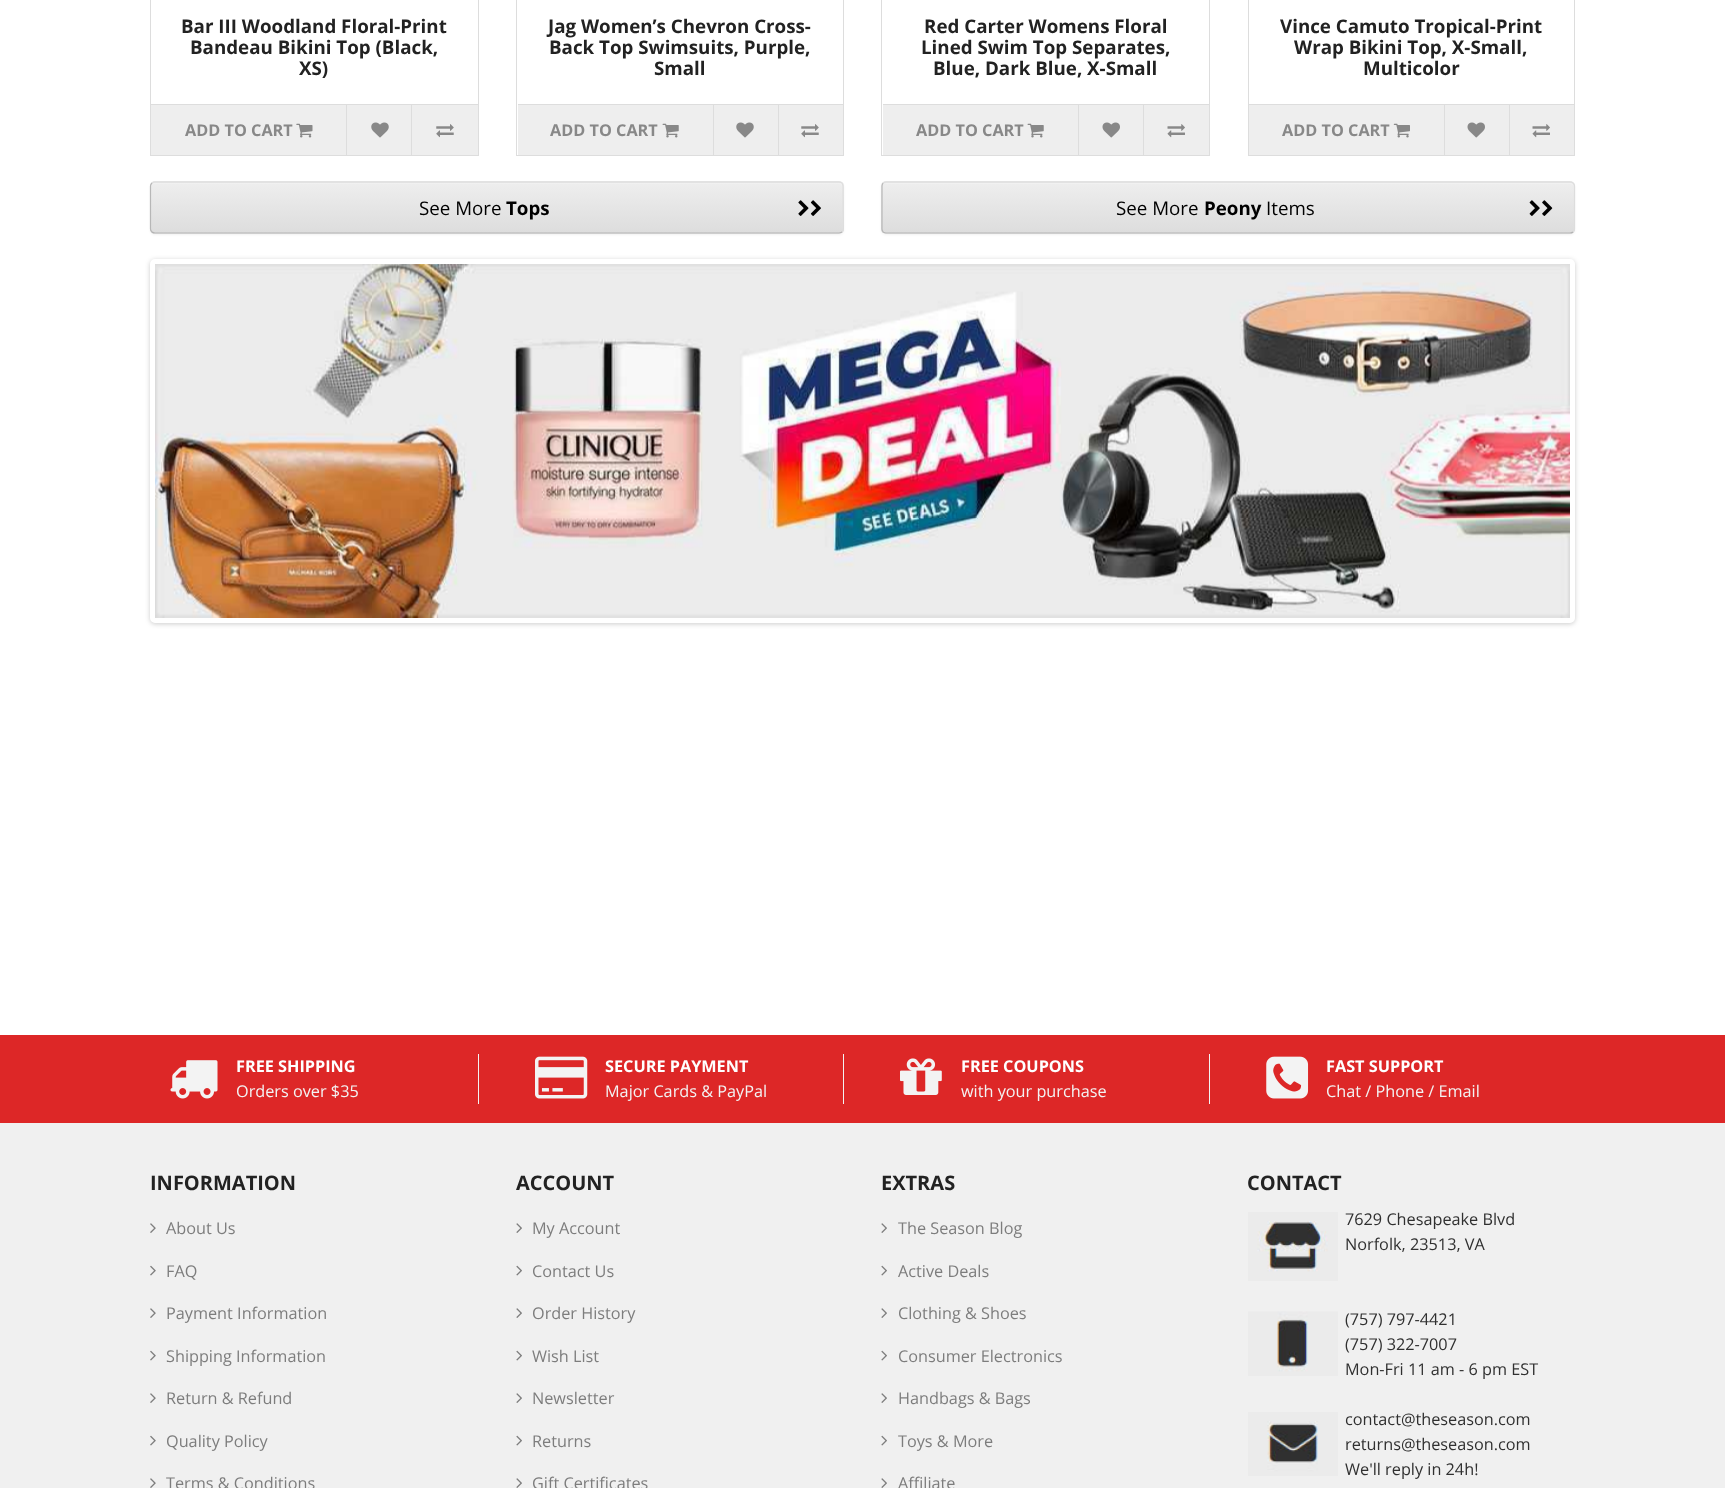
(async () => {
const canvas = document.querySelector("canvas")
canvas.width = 1725
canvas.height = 1488
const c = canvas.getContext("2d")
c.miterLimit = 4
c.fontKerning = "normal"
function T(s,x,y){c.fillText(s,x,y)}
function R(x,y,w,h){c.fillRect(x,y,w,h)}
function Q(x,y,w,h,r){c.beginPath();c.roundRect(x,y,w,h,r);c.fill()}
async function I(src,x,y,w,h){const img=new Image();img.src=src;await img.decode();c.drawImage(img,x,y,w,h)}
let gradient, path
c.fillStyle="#fff"
R(0,0,1725,1488)
c.strokeStyle="#ddd"
c.strokeRect(150.5,-.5,328,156)
c.font="bold 18.75px Open Sans"
c.fillStyle="#222"
T("Bar III Woodland Floral-Print",181,33)
T("Bandeau Bikini Top (Black,",190,54)
T("XS)",299,75)
c.fillStyle="#eee"
R(151,105,327,50)
c.fillStyle="#ddd"
R(151,104,327,1)
c.font="bold 16.25px Open Sans"
c.fillStyle="#888"
T("ADD TO CART",185,136)
await I("1.png",296,123,17,15)
c.fillStyle="#ddd"
R(346,105,1,50)
await I("2.png",371,122,18,16)
R(411,105,1,50)
await I("3.png",436,124,18,14)
c.strokeRect(516.5,-.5,327,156)
c.font="bold 18.75px Open Sans"
c.fillStyle="#222"
T("Jag Women’s Chevron Cross-",548,33)
T("Back Top Swimsuits, Purple,",549,54)
T("Small",654,75)
c.fillStyle="#eee"
R(518,105,325,50)
c.fillStyle="#ddd"
R(518,104,325,1)
c.font="bold 16.25px Open Sans"
c.fillStyle="#888"
T("ADD TO CART",550,136)
await I("4.png",662,123,17,15)
c.fillStyle="#ddd"
R(713,105,1,50)
await I("2.png",736,122,18,16)
R(778,105,1,50)
await I("3.png",801,124,18,14)
c.strokeRect(881.5,-.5,328,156)
c.font="bold 18.75px Open Sans"
c.fillStyle="#222"
T("Red Carter Womens Floral",924,33)
T("Lined Swim Top Separates,",921,54)
T("Blue, Dark Blue, X-Small",933,75)
c.fillStyle="#eee"
R(883,105,326,50)
c.fillStyle="#ddd"
R(883,104,326,1)
c.font="bold 16.25px Open Sans"
c.fillStyle="#888"
T("ADD TO CART",916,136)
await I("4.png",1027,123,17,15)
c.fillStyle="#ddd"
R(1078,105,1,50)
await I("5.png",1102,122,18,16)
R(1143,105,1,50)
await I("6.png",1167,124,18,14)
c.strokeRect(1248.5,-.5,326,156)
c.font="bold 18.75px Open Sans"
c.fillStyle="#222"
T("Vince Camuto Tropical-Print",1280,33)
T("Wrap Bikini Top, X-Small,",1294,54)
T("Multicolor",1363,75)
c.fillStyle="#eee"
R(1249,105,325,50)
c.fillStyle="#ddd"
R(1249,104,325,1)
c.font="bold 16.25px Open Sans"
c.fillStyle="#888"
T("ADD TO CART",1282,136)
await I("7.png",1393,123,17,15)
c.fillStyle="#ddd"
R(1444,105,1,50)
await I("5.png",1467,122,18,16)
R(1509,105,1,50)
await I("6.png",1532,124,18,14)
c.fillStyle="#0000000d"
c.filter="blur(1px)"
c.beginPath()
c.roundRect(150,183,694,52,5)
c.fill()
c.filter="none"
c.fillStyle="#e7e7e7"
Q(150,181,694,53,5)
c.save()
c.beginPath()
c.roundRect(150,181,694,53,5)
c.clip()
gradient = c.createLinearGradient(497,182,497,233)
gradient.addColorStop(0,"#eee")
gradient.addColorStop(1,"#ddd")
c.fillStyle = gradient
R(150,183,694,50)
c.restore()
c.fillStyle="#ffffff33"
path = new Path2D("M155 184h684c2 0 3 1 3 4v44c0-1 1-2 1-3v-42c0-2-2-4-4-4h-684c-2 0-4 2-4 4v1c0-3 2-4 4-4z")
c.fill(path)
path = new Path2D("M152 183c.5-.5 2-1 3-1h684c1 0 2 .5 3 1c.5 1 1 2 1 3v43c0 1-.5 2-1 3")
c.lineWidth=1.2
c.stroke(path)
path = new Path2D("M842 232c-1 .5-2 1-3 1h-684c-1 0-2.5-.5-3-1")
c.strokeStyle="#b3b3b3"
c.stroke(path)
path = new Path2D("M152 232c-1-1-1.5-2-1.5-3v-43c0-1 .5-2 1.5-3")
c.strokeStyle="#b7b7b7"
c.stroke(path)
c.font="18.75px Open Sans"
c.fillStyle="#000"
T("See More",419,215)
c.font="bold 18.75px Open Sans"
T("Tops",506,215)
await I("8.png",798,200,11,16)
await I("9.png",810,200,11,16)
c.fillStyle="#0000000d"
c.filter="blur(1px)"
c.beginPath()
c.roundRect(881,183,694,52,5)
c.fill()
c.filter="none"
c.fillStyle="#e7e7e7"
Q(881,181,694,53,5)
c.save()
c.beginPath()
c.roundRect(881,181,694,53,5)
c.clip()
gradient = c.createLinearGradient(1228,182,1228,233)
gradient.addColorStop(0,"#eee")
gradient.addColorStop(1,"#ddd")
c.fillStyle = gradient
R(881,183,694,50)
c.restore()
c.fillStyle="#f1f1f1"
path = new Path2D("M886 184h684c2 0 4 1 4 4v-1c0-2-2-4-4-4h-683c-1 0-2 1-3 1z")
c.fill(path)
path = new Path2D("M883 183c1-.5 2-1 3-1h684c1 0 2.5 .5 3 1c1 1 1.5 2 1.5 3v43c0 1-.5 2-1.5 3")
c.strokeStyle="#ddd"
c.stroke(path)
path = new Path2D("M1573 232c-.5 .5-2 1-3 1h-684c-1 0-2-.5-3-1")
c.strokeStyle="#b3b3b3"
c.stroke(path)
path = new Path2D("M883 232c-.5-1-1-2-1-3v-43c0-1 .5-2 1-3")
c.strokeStyle="#b7b7b7"
c.stroke(path)
c.font="18.75px Open Sans"
c.fillStyle="#000"
T("See More",1116,215)
c.font="bold 18.75px Open Sans"
T("Peony",1204,215)
c.font="18.75px Open Sans"
T("Items",1266,215)
await I("10.png",1529,200,11,16)
await I("11.png",1542,200,11,16)
c.fillStyle="#00000033"
c.filter="blur(2.5px)"
c.beginPath()
c.roundRect(150,260,1425,364,5)
c.fill()
c.filter="none"
c.beginPath()
c.roundRect(152.5,261.5,1420,359,2.5)
c.strokeStyle="#fff"
c.lineWidth=5
c.stroke()
await I("12.png",155,264,1415,354)
c.fillStyle="#dd2727"
R(0,1035,1725,88)
c.fillStyle="#f3f3f3"
R(478,1054,1,50)
await I("13.png",170,1060,48,39)
c.font="bold 16.25px Open Sans"
c.fillStyle="#fff"
T("FREE SHIPPING",236,1072)
c.font="16.25px Open Sans"
c.fillStyle="#f3f3f3"
T("Orders over $35",236,1097)
R(843,1054,1,50)
await I("14.png",535,1056,53,43)
c.font="bold 16.25px Open Sans"
c.fillStyle="#fff"
T("SECURE PAYMENT",605,1072)
c.font="16.25px Open Sans"
c.fillStyle="#f3f3f3"
T("Major Cards & PayPal",605,1097)
R(1209,1054,1,50)
await I("15.png",900,1058,42,37)
c.font="bold 16.25px Open Sans"
c.fillStyle="#fff"
T("FREE COUPONS",961,1072)
c.font="16.25px Open Sans"
c.fillStyle="#f3f3f3"
T("with your purchase",961,1097)
await I("16.png",1266,1056,43,43)
c.font="bold 16.25px Open Sans"
c.fillStyle="#fff"
T("FAST SUPPORT",1326,1072)
c.font="16.25px Open Sans"
c.fillStyle="#f3f3f3"
T("Chat / Phone / Email",1326,1097)
c.fillStyle="#f0f0f0"
R(0,1123,1725,365)
c.font="bold 20px Open Sans"
c.fillStyle="#222"
T("INFORMATION",150,1190)
await I("17.png",150,1223,6,10)
c.font="16.25px Open Sans"
c.fillStyle="#7d7d7d"
T("About Us",166,1234)
await I("18.png",150,1265,6,11)
T("FAQ",166,1277)
await I("17.png",150,1308,6,10)
T("Payment Information",166,1319)
await I("18.png",150,1350,6,11)
T("Shipping Information",166,1362)
await I("17.png",150,1393,6,10)
T("Return & Refund",166,1404)
await I("18.png",150,1435,6,11)
T("Quality Policy",166,1447)
await I("17.png",150,1478,6,10)
T("Terms & Conditions",166,1489)
c.font="bold 20px Open Sans"
c.fillStyle="#222"
T("ACCOUNT",516,1190)
await I("19.png",516,1223,6,10)
c.font="16.25px Open Sans"
c.fillStyle="#7d7d7d"
T("My Account",532,1234)
await I("20.png",516,1265,6,11)
T("Contact Us",532,1277)
await I("19.png",516,1308,6,10)
T("Order History",532,1319)
await I("20.png",516,1350,6,11)
T("Wish List",532,1362)
await I("19.png",516,1393,6,10)
T("Newsletter",532,1404)
await I("20.png",516,1435,6,11)
T("Returns",532,1447)
await I("19.png",516,1478,6,10)
T("Gift Certificates",532,1489)
c.font="bold 20px Open Sans"
c.fillStyle="#222"
T("EXTRAS",881,1190)
await I("19.png",881,1223,6,10)
c.font="16.25px Open Sans"
c.fillStyle="#7d7d7d"
T("The Season Blog",898,1234)
await I("20.png",881,1265,6,11)
T("Active Deals",898,1277)
await I("19.png",881,1308,6,10)
T("Clothing & Shoes",898,1319)
await I("20.png",881,1350,6,11)
T("Consumer Electronics",898,1362)
await I("19.png",881,1393,6,10)
T("Handbags & Bags",898,1404)
await I("20.png",881,1435,6,11)
T("Toys & More",898,1447)
await I("19.png",881,1478,6,10)
T("Affiliate",898,1489)
c.font="bold 20px Open Sans"
c.fillStyle="#222"
T("CONTACT",1247,1190)
await I("21.png",1248,1212,90,69)
c.font="16.25px Open Sans"
c.fillStyle="#303030"
T("7629 Chesapeake Blvd",1345,1225)
T("Norfolk, 23513, VA",1345,1250)
await I("22.png",1248,1311,90,65)
T("(757) 797-4421",1345,1325)
T("(757) 322-7007",1345,1350)
T("Mon-Fri 11 am - 6 pm EST",1345,1375)
await I("23.png",1248,1412,90,64)
T("contact@theseason.com",1345,1425)
T("returns@theseason.com",1345,1450)
T("We'll reply in 24h!",1345,1475)
})()
